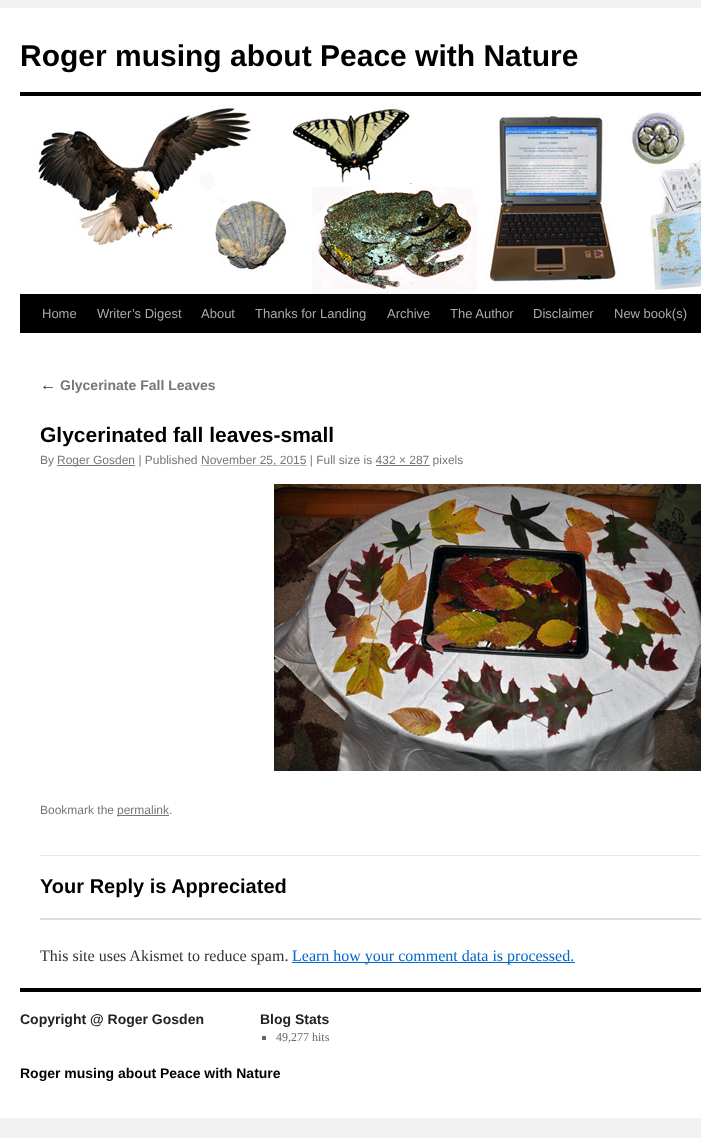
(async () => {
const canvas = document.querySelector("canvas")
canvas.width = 701
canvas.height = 1138
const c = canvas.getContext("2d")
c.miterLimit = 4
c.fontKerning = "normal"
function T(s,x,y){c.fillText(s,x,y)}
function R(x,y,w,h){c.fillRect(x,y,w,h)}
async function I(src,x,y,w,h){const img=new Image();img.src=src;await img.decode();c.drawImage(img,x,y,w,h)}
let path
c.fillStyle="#f1f1f1"
R(0,0,701,1138)
c.fillStyle="#fff"
R(0,8,701,1110)
c.font="bold 30px Liberation Sans"
c.fillStyle="#000"
T("Roger musing about Peace with Nature",20,66)
R(20,92,681,4)
R(20,294,681,39)
await I("1.png",36,105,665,189)
c.font="13px Liberation Sans"
c.fillStyle="#aaa"
T("Home",42,318)
T("Writer’s Digest",97,318)
T("About",201,318)
T("Thanks for Landing",255,318)
T("Archive",387,318)
T("The Author",450,318)
T("Disclaimer",533,318)
T("New book(s)",614,318)
c.font="italic 16px Liberation Serif"
c.fillStyle="#333"
T("←",40,390)
c.font="bold 14px Liberation Sans"
c.fillStyle="#777"
T("Glycerinate Fall Leaves",60,390)
c.font="bold 21px Liberation Sans"
c.fillStyle="#000"
T("Glycerinated fall leaves-small",40,442)
c.font="12px Liberation Sans"
c.fillStyle="#777"
T("By",40,464)
R(57,465,78,1)
T("Roger Gosden | Published",57,464)
path = new Path2D("M201.5 465.5h105")
c.strokeStyle="#777"
c.setLineDash([1,1])
c.stroke(path)
T("November 25, 2015 | Full size is 432 × 287 pixels",201,464)
R(376,465,54,1)
await I("2.png",274,484,427,287)
T("Bookmark the",40,814)
R(117,815,52,1)
T("permalink.",117,814)
c.fillStyle="#e7e7e7"
R(40,855,661,1)
c.font="bold 20px Liberation Sans"
c.fillStyle="#000"
T("Your Reply is Appreciated",40,893)
c.fillStyle="#dcdcde"
R(40,918,661,2)
c.font="16px Liberation Serif"
c.fillStyle="#333"
T("This site uses Akismet to reduce spam.",40,961)
c.fillStyle="#06c"
R(292,962,283,1)
T("Learn how your comment data is processed.",292,961)
c.fillStyle="#000"
R(20,988,681,4)
c.font="bold 14px Liberation Sans"
c.fillStyle="#222"
T("Copyright @ Roger Gosden",20,1024)
T("Blog Stats",260,1024)
c.fillStyle="#666"
R(262,1036,4,4)
c.font="12px Liberation Serif"
T("49,277 hits",276,1041)
c.font="bold 14px Liberation Sans"
c.fillStyle="#000"
T("Roger musing about Peace with Nature",20,1078)
})()
